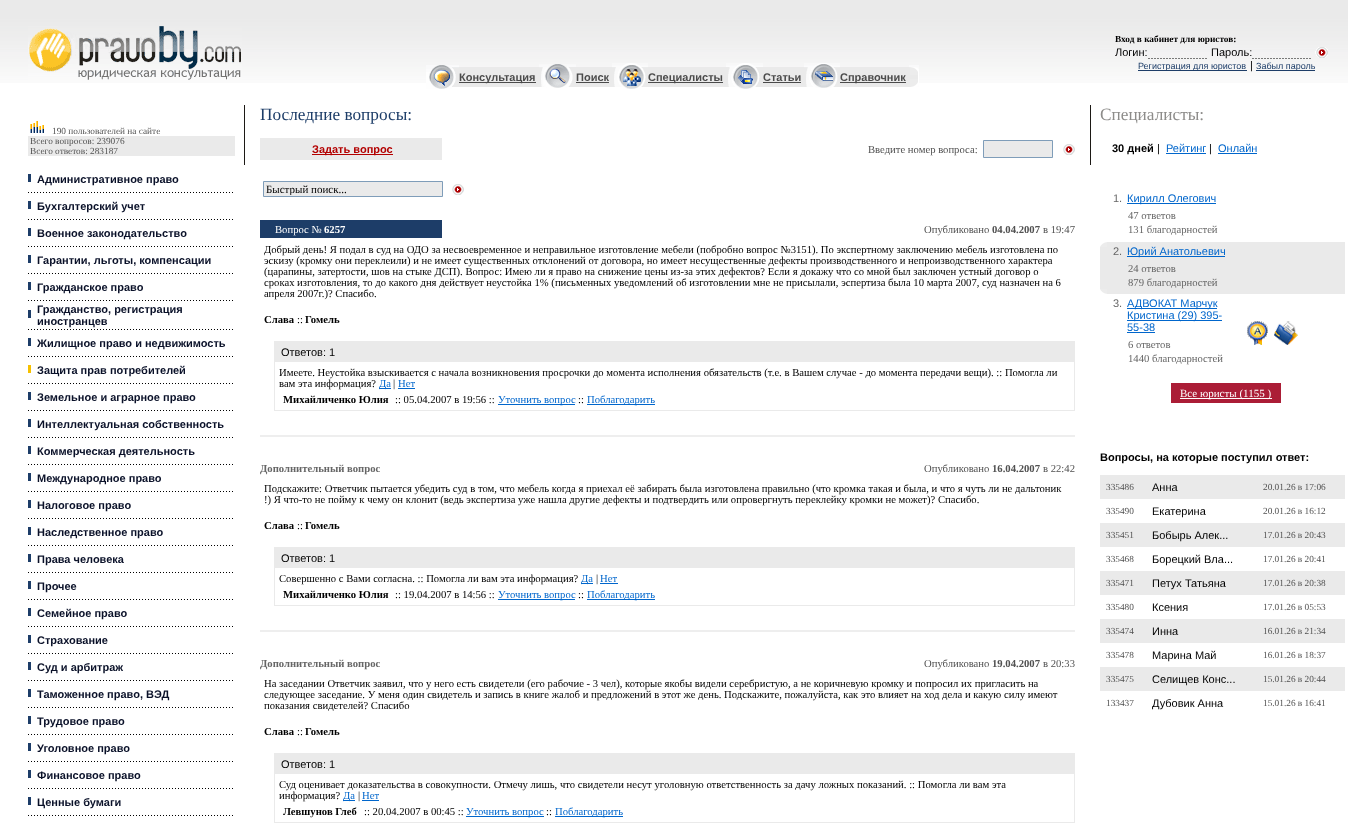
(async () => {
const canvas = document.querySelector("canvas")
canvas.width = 1348
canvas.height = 823
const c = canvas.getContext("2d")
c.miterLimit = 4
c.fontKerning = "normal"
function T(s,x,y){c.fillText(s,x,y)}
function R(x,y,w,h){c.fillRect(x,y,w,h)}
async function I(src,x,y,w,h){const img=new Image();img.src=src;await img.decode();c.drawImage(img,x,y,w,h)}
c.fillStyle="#fff"
R(0,0,1348,823)
await I("1.png",0,0,1348,83)
await I("2.png",28,26,214,54)
c.font="bold 9.3px Liberation Serif"
c.fillStyle="#000"
T("Вход в кабинет для юристов:",1115,42)
c.font="11px Liberation Sans"
T("Логин:",1115,56)
await I("3.png",1148,58,59,1)
T("Пароль:",1211,56)
await I("3.png",1252,58,59,1)
await I("4.png",1315,47,13,11)
c.fillStyle="#1d3d68"
R(1138,70,109,1)
c.font="9px Liberation Sans"
T("Регистрация для юристов",1138,69)
c.font="11px Liberation Sans"
c.fillStyle="#000"
T("|",1250,69)
c.fillStyle="#1d3d68"
R(1256,70,59,1)
c.font="9px Liberation Sans"
T("Забыл пароль",1256,69)
c.fillStyle="#eaeaea"
R(459,67,450,20)
await I("5.png",426,65,33,24)
c.fillStyle="#4b4b4b"
R(459,82,77,1)
c.font="bold 11px Liberation Sans"
T("Консультация",459,81)
await I("6.png",539,64,37,24)
T("Поиск",576,81)
R(576,82,33,1)
await I("7.png",612,63,36,26)
R(648,82,75,1)
T("Специалисты",648,81)
await I("8.png",726,63,37,26)
T("Статьи",763,81)
R(763,82,38,1)
await I("9.png",804,63,36,25)
R(840,82,66,1)
T("Справочник",840,81)
await I("10.png",909,65,10,22)
c.fillStyle="#eaeaea"
R(28,136,207,20)
await I("11.png",30,121,14,12)
c.font="9.3px Liberation Serif"
c.fillStyle="#515151"
T("190 пользователей на сайте",52,134)
T("Всего вопросов: 239076",30,144)
T("Всего ответов: 283187",30,154)
c.fillStyle="#1d3d68"
R(28,174,3,8)
c.font="bold 11px Liberation Sans"
c.fillStyle="#0a1129"
T("Административное право",37,183)
await I("12.png",28,192,205,1)
c.fillStyle="#1d3d68"
R(28,201,3,8)
c.fillStyle="#0a1129"
T("Бухгалтерский учет",37,210)
await I("12.png",28,219,205,1)
c.fillStyle="#1d3d68"
R(28,228,3,8)
c.fillStyle="#0a1129"
T("Военное законодательство",37,237)
await I("12.png",28,246,205,1)
c.fillStyle="#1d3d68"
R(28,255,3,8)
c.fillStyle="#0a1129"
T("Гарантии, льготы, компенсации",37,264)
await I("12.png",28,273,205,1)
c.fillStyle="#1d3d68"
R(28,282,3,8)
c.fillStyle="#0a1129"
T("Гражданское право",37,291)
await I("12.png",28,300,205,1)
c.fillStyle="#1d3d68"
R(28,310,3,8)
c.fillStyle="#0a1129"
T("Гражданство, регистрация",37,313)
T("иностранцев",37,325)
await I("12.png",28,329,205,1)
c.fillStyle="#1d3d68"
R(28,338,3,8)
c.fillStyle="#0a1129"
T("Жилищное право и недвижимость",37,347)
await I("12.png",28,356,205,1)
c.fillStyle="#f6c000"
R(28,365,3,8)
c.fillStyle="#0a1129"
T("Защита прав потребителей",37,374)
await I("12.png",28,383,205,1)
c.fillStyle="#1d3d68"
R(28,392,3,8)
c.fillStyle="#0a1129"
T("Земельное и аграрное право",37,401)
await I("12.png",28,410,205,1)
c.fillStyle="#1d3d68"
R(28,419,3,8)
c.fillStyle="#0a1129"
T("Интеллектуальная собственность",37,428)
await I("12.png",28,437,205,1)
c.fillStyle="#1d3d68"
R(28,446,3,8)
c.fillStyle="#0a1129"
T("Коммерческая деятельность",37,455)
await I("12.png",28,464,205,1)
c.fillStyle="#1d3d68"
R(28,473,3,8)
c.fillStyle="#0a1129"
T("Международное право",37,482)
await I("12.png",28,491,205,1)
c.fillStyle="#1d3d68"
R(28,500,3,8)
c.fillStyle="#0a1129"
T("Налоговое право",37,509)
await I("12.png",28,518,205,1)
c.fillStyle="#1d3d68"
R(28,527,3,8)
c.fillStyle="#0a1129"
T("Наследственное право",37,536)
await I("12.png",28,545,205,1)
c.fillStyle="#1d3d68"
R(28,554,3,8)
c.fillStyle="#0a1129"
T("Права человека",37,563)
await I("12.png",28,572,205,1)
c.fillStyle="#1d3d68"
R(28,581,3,8)
c.fillStyle="#0a1129"
T("Прочее",37,590)
await I("12.png",28,599,205,1)
c.fillStyle="#1d3d68"
R(28,608,3,8)
c.fillStyle="#0a1129"
T("Семейное право",37,617)
await I("12.png",28,626,205,1)
c.fillStyle="#1d3d68"
R(28,635,3,8)
c.fillStyle="#0a1129"
T("Страхование",37,644)
await I("12.png",28,653,205,1)
c.fillStyle="#1d3d68"
R(28,662,3,8)
c.fillStyle="#0a1129"
T("Суд и арбитраж",37,671)
await I("12.png",28,680,205,1)
c.fillStyle="#1d3d68"
R(28,689,3,8)
c.fillStyle="#0a1129"
T("Таможенное право, ВЭД",37,698)
await I("12.png",28,707,205,1)
c.fillStyle="#1d3d68"
R(28,716,3,8)
c.fillStyle="#0a1129"
T("Трудовое право",37,725)
await I("12.png",28,734,205,1)
c.fillStyle="#1d3d68"
R(28,743,3,8)
c.fillStyle="#0a1129"
T("Уголовное право",37,752)
await I("12.png",28,761,205,1)
c.fillStyle="#1d3d68"
R(28,770,3,8)
c.fillStyle="#0a1129"
T("Финансовое право",37,779)
await I("12.png",28,788,205,1)
c.fillStyle="#1d3d68"
R(28,797,3,8)
c.fillStyle="#0a1129"
T("Ценные бумаги",37,806)
await I("12.png",28,815,205,1)
c.fillStyle="#1c1915"
R(244,105,1,60)
c.font="17.25px Liberation Serif"
c.fillStyle="#1d3d68"
T("Последние вопросы:",260,120)
c.fillStyle="#eaeaea"
R(260,138,182,22)
c.fillStyle="#b30000"
R(312,154,81,1)
c.font="bold 11px Liberation Sans"
T("Задать вопрос",312,153)
c.font="10.67px Liberation Serif"
c.fillStyle="#515151"
T("Введите номер вопроса:",868,153)
c.fillStyle="#eaeaea"
c.beginPath()
c.rect(983.5,140.5,69,17)
c.fill()
c.strokeStyle="#7f9db9"
c.stroke()
await I("13.png",1063,144,12,11)
c.beginPath()
c.rect(263.5,181.5,179,15)
c.fill()
c.stroke()
c.save()
c.beginPath()
c.rect(266,183,174,12)
c.clip()
c.font="11px Liberation Serif"
c.fillStyle="#000"
T("Быстрый поиск...",266,193)
c.restore()
await I("13.png",452,184,12,11)
c.fillStyle="#1d3d68"
R(260,220,182,18)
c.fillStyle="#fff"
T("Вопрос №",275,233)
c.font="bold 10.67px Liberation Serif"
T("6257",324,233)
c.font="10.67px Liberation Serif"
c.fillStyle="#515151"
T("Опубликовано",924,233)
c.font="bold 10.67px Liberation Serif"
T("04.04.2007",992,233)
c.font="10.67px Liberation Serif"
T("в 19:47",1043,233)
c.fillStyle="#000"
T("Добрый день! Я подал в суд на ОДО за несвоевременное и неправильное изготовление мебели (побробно вопрос №3151). По экспертному заключению мебель изготовлена по",264,253)
T("эскизу (кромку они переклеили) и не имеет существенных отклонений от договора, но имеет несущественные дефекты производственного и непроизводственного характера",264,264)
T("(царапины, затертости, шов на стыке ДСП). Вопрос: Имею ли я право на снижение цены из-за этих дефектов? Если я докажу что со мной был заключен устный договор о",264,275)
T("сроках изготовления, то до какого дня действует неустойка 1% (письменных уведомлений об изготовлении мне не присылали, эспертиза была 10 марта 2007, суд назначен на 6",264,286)
T("апреля 2007г.)? Спасибо.",264,297)
c.font="bold 10.67px Liberation Serif"
T("Слава",264,323)
c.font="10.67px Liberation Serif"
T("::",297,323)
c.font="bold 10.67px Liberation Serif"
T("Гомель",305,323)
c.fillStyle="#eaeaea"
R(274,341,801,70)
c.font="11px Liberation Sans"
c.fillStyle="#000"
T("Ответов: 1",281,356)
c.fillStyle="#fff"
R(275,362,799,48)
c.font="10.67px Liberation Serif"
c.fillStyle="#000"
T("Имеете. Неустойка взыскивается с начала возникновения просрочки до момента исполнения обязательств (т.е. в Вашем случае - до момента передачи вещи). :: Помогла ли",279,376)
T("вам эта информация?",279,387)
c.fillStyle="#06c"
R(379,388,12,1)
T("Да",379,387)
c.fillStyle="#000"
T("|",393,387)
c.fillStyle="#06c"
T("Нет",398,387)
R(398,388,17,1)
c.font="bold 10.67px Liberation Serif"
c.fillStyle="#000"
T("Михайличенко Юлия",283,403)
c.font="10.67px Liberation Serif"
T(":: 05.04.2007 в 19:56 ::",395,403)
c.fillStyle="#06c"
R(498,404,77,1)
T("Уточнить вопрос",498,403)
c.fillStyle="#000"
T("::",578,403)
c.fillStyle="#06c"
R(587,404,68,1)
T("Поблагодарить",587,403)
c.fillStyle="#eee"
R(260,435,815,2)
c.font="bold 10.67px Liberation Serif"
c.fillStyle="#666"
T("Дополнительный вопрос",260,472)
c.font="10.67px Liberation Serif"
c.fillStyle="#515151"
T("Опубликовано",924,472)
c.font="bold 10.67px Liberation Serif"
T("16.04.2007",992,472)
c.font="10.67px Liberation Serif"
T("в 22:42",1043,472)
c.fillStyle="#000"
T("Подскажите: Ответчик пытается убедить суд в том, что мебель когда я приехал её забирать была изготовлена правильно (что кромка такая и была, и что я чуть ли не дальтоник",264,492)
T("!) Я что-то не пойму к чему он клонит (ведь экспертиза уже нашла другие дефекты и подтвердить или опровергнуть переклейку кромки не может)? Спасибо.",264,503)
c.font="bold 10.67px Liberation Serif"
T("Слава",264,529)
c.font="10.67px Liberation Serif"
T("::",297,529)
c.font="bold 10.67px Liberation Serif"
T("Гомель",305,529)
c.fillStyle="#eaeaea"
R(274,547,801,59)
c.font="11px Liberation Sans"
c.fillStyle="#000"
T("Ответов: 1",281,562)
c.fillStyle="#fff"
R(275,568,799,37)
c.font="10.67px Liberation Serif"
c.fillStyle="#000"
T("Совершенно с Вами согласна. :: Помогла ли вам эта информация?",279,582)
c.fillStyle="#06c"
R(581,583,12,1)
T("Да",581,582)
c.fillStyle="#000"
T("|",596,582)
c.fillStyle="#06c"
T("Нет",600,582)
R(600,583,18,1)
c.font="bold 10.67px Liberation Serif"
c.fillStyle="#000"
T("Михайличенко Юлия",283,598)
c.font="10.67px Liberation Serif"
T(":: 19.04.2007 в 14:56 ::",395,598)
c.fillStyle="#06c"
R(498,599,77,1)
T("Уточнить вопрос",498,598)
c.fillStyle="#000"
T("::",578,598)
c.fillStyle="#06c"
R(587,599,68,1)
T("Поблагодарить",587,598)
c.fillStyle="#eee"
R(260,630,815,2)
c.font="bold 10.67px Liberation Serif"
c.fillStyle="#666"
T("Дополнительный вопрос",260,667)
c.font="10.67px Liberation Serif"
c.fillStyle="#515151"
T("Опубликовано",924,667)
c.font="bold 10.67px Liberation Serif"
T("19.04.2007",992,667)
c.font="10.67px Liberation Serif"
T("в 20:33",1043,667)
c.fillStyle="#000"
T("На заседании Ответчик заявил, что у него есть свидетели (его рабочие - 3 чел), которые якобы видели серебристую, а не коричневую кромку и попросил их пригласить на",264,687)
T("следующее заседание. У меня один свидетель и запись в книге жалоб и предложений в этот же день. Подскажите, пожалуйста, как это влияет на ход дела и какую силу имеют",264,698)
T("показания свидетелей? Спасибо",264,709)
c.font="bold 10.67px Liberation Serif"
T("Слава",264,735)
c.font="10.67px Liberation Serif"
T("::",297,735)
c.font="bold 10.67px Liberation Serif"
T("Гомель",305,735)
c.fillStyle="#eaeaea"
R(274,753,801,70)
c.font="11px Liberation Sans"
c.fillStyle="#000"
T("Ответов: 1",281,768)
c.fillStyle="#fff"
R(275,774,799,48)
c.font="10.67px Liberation Serif"
c.fillStyle="#000"
T("Суд оценивает доказательства в совокупности. Отмечу лишь, что свидетели несут уголовную ответственность за дачу ложных показаний. :: Помогла ли вам эта",279,788)
T("информация?",279,799)
c.fillStyle="#06c"
R(343,800,12,1)
T("Да",343,799)
c.fillStyle="#000"
T("|",358,799)
c.fillStyle="#06c"
T("Нет",362,799)
R(362,800,17,1)
c.font="bold 10.67px Liberation Serif"
c.fillStyle="#000"
T("Левшунов Глеб",283,815)
c.font="10.67px Liberation Serif"
T(":: 20.04.2007 в 00:45 ::",364,815)
c.fillStyle="#06c"
R(466,816,78,1)
T("Уточнить вопрос",466,815)
c.fillStyle="#000"
T("::",546,815)
c.fillStyle="#06c"
R(555,816,68,1)
T("Поблагодарить",555,815)
c.fillStyle="#1c1915"
R(1090,105,1,60)
c.font="17.25px Liberation Serif"
c.fillStyle="#8d8c8a"
T("Специалисты:",1100,120)
c.font="bold 11px Liberation Sans"
c.fillStyle="#000"
T("30 дней",1112,152)
c.font="11px Liberation Sans"
T("|",1157,152)
c.fillStyle="#06c"
T("Рейтинг",1166,152)
R(1166,153,40,1)
c.fillStyle="#000"
T("|",1209,152)
c.fillStyle="#06c"
T("Онлайн",1218,152)
R(1218,153,39,1)
c.fillStyle="#666"
T("1.",1113,202)
c.fillStyle="#06c"
R(1127,203,89,1)
T("Кирилл Олегович",1127,202)
c.font="10.67px Liberation Serif"
c.fillStyle="#666"
T("47 ответов",1128,219)
T("131 благодарностей",1128,233)
c.fillStyle="#eaeaea"
R(1100,242,8,52)
await I("14.png",1100,242,7,5)
R(1108,242,237,52)
c.font="11px Liberation Sans"
c.fillStyle="#666"
T("2.",1113,255)
c.fillStyle="#06c"
R(1127,256,98,1)
T("Юрий Анатольевич",1127,255)
c.font="10.67px Liberation Serif"
c.fillStyle="#666"
T("24 ответов",1128,272)
T("879 благодарностей",1128,286)
await I("15.png",1100,289,7,5)
c.font="11px Liberation Sans"
T("3.",1113,307)
c.fillStyle="#06c"
R(1127,308,90,1)
T("АДВОКАТ Марчук",1127,307)
R(1127,320,95,1)
T("Кристина (29) 395-",1127,319)
T("55-38",1127,331)
R(1127,332,28,1)
c.font="10.67px Liberation Serif"
c.fillStyle="#666"
T("6 ответов",1128,348)
T("1440 благодарностей",1128,362)
await I("16.png",1247,321,21,24)
await I("17.png",1274,321,24,24)
c.fillStyle="#ab1d36"
R(1171,383,110,20)
c.fillStyle="#fff"
R(1180,398,92,1)
c.font="11px Liberation Serif"
T("Все юристы (1155 )",1180,397)
c.font="bold 11px Liberation Sans"
c.fillStyle="#000"
T("Вопросы, на которые поступил ответ:",1100,461)
c.fillStyle="#eaeaea"
R(1100,475,245,24)
c.font="9.3px Liberation Serif"
c.fillStyle="#515151"
T("335486",1106,490)
c.font="11px Liberation Sans"
c.fillStyle="#000"
T("Анна",1152,491)
c.font="9.3px Liberation Serif"
c.fillStyle="#515151"
T("20.01.26 в 17:06",1263,490)
T("335490",1106,514)
c.font="11px Liberation Sans"
c.fillStyle="#000"
T("Екатерина",1152,515)
c.font="9.3px Liberation Serif"
c.fillStyle="#515151"
T("20.01.26 в 16:12",1263,514)
c.fillStyle="#eaeaea"
R(1100,523,245,24)
c.fillStyle="#515151"
T("335451",1106,538)
c.font="11px Liberation Sans"
c.fillStyle="#000"
T("Бобырь Алек...",1152,539)
c.font="9.3px Liberation Serif"
c.fillStyle="#515151"
T("17.01.26 в 20:43",1263,538)
T("335468",1106,562)
c.font="11px Liberation Sans"
c.fillStyle="#000"
T("Борецкий Вла...",1152,563)
c.font="9.3px Liberation Serif"
c.fillStyle="#515151"
T("17.01.26 в 20:41",1263,562)
c.fillStyle="#eaeaea"
R(1100,571,245,24)
c.fillStyle="#515151"
T("335471",1106,586)
c.font="11px Liberation Sans"
c.fillStyle="#000"
T("Петух Татьяна",1152,587)
c.font="9.3px Liberation Serif"
c.fillStyle="#515151"
T("17.01.26 в 20:38",1263,586)
T("335480",1106,610)
c.font="11px Liberation Sans"
c.fillStyle="#000"
T("Ксения",1152,611)
c.font="9.3px Liberation Serif"
c.fillStyle="#515151"
T("17.01.26 в 05:53",1263,610)
c.fillStyle="#eaeaea"
R(1100,619,245,24)
c.fillStyle="#515151"
T("335474",1106,634)
c.font="11px Liberation Sans"
c.fillStyle="#000"
T("Инна",1152,635)
c.font="9.3px Liberation Serif"
c.fillStyle="#515151"
T("16.01.26 в 21:34",1263,634)
T("335478",1106,658)
c.font="11px Liberation Sans"
c.fillStyle="#000"
T("Марина Май",1152,659)
c.font="9.3px Liberation Serif"
c.fillStyle="#515151"
T("16.01.26 в 18:37",1263,658)
c.fillStyle="#eaeaea"
R(1100,667,245,24)
c.fillStyle="#515151"
T("335475",1106,682)
c.font="11px Liberation Sans"
c.fillStyle="#000"
T("Селищев Конс...",1152,683)
c.font="9.3px Liberation Serif"
c.fillStyle="#515151"
T("15.01.26 в 20:44",1263,682)
T("133437",1106,706)
c.font="11px Liberation Sans"
c.fillStyle="#000"
T("Дубовик Анна",1152,707)
c.font="9.3px Liberation Serif"
c.fillStyle="#515151"
T("15.01.26 в 16:41",1263,706)
})()
